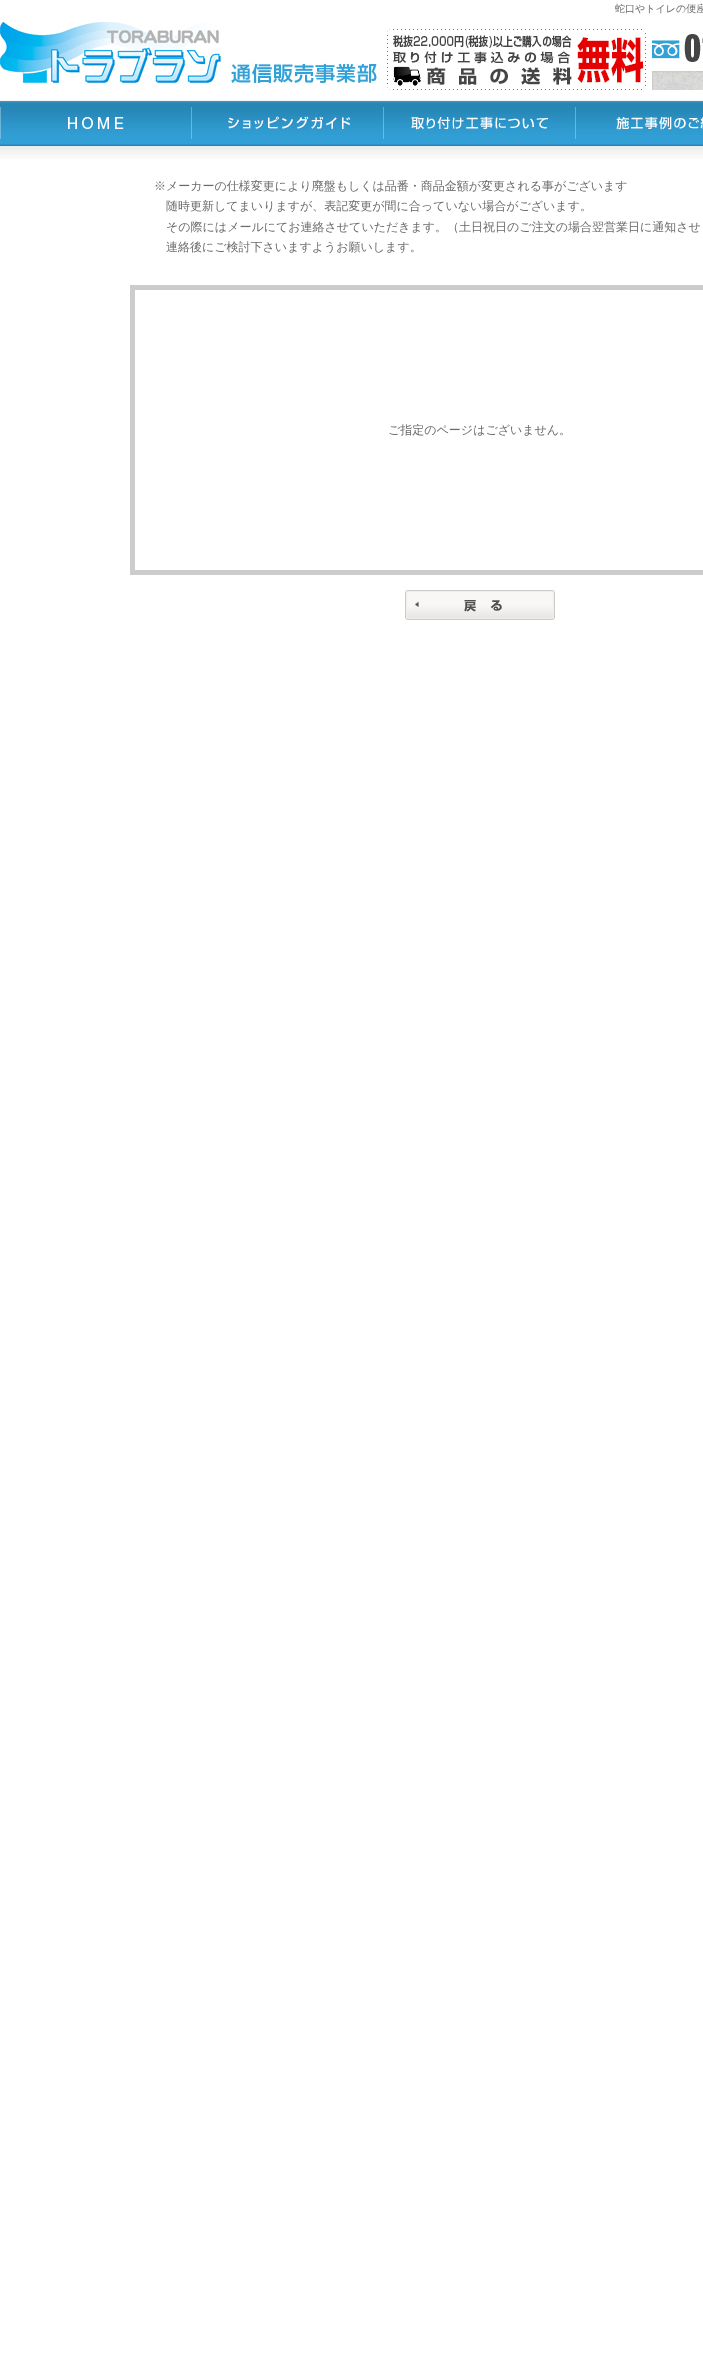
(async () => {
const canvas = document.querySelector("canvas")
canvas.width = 703
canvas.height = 2377
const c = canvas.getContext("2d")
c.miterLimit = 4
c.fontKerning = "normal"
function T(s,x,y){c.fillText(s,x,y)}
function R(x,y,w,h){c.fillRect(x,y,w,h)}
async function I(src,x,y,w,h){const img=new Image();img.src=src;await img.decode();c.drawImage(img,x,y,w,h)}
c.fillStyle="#fff"
R(0,0,703,2377)
await I("1.png",0,130,703,29)
await I("2.png",0,20,703,70)
c.font="500 10px WenQuanYi Zen Hei"
c.fillStyle="#6b6b6b"
T("蛇口やトイレの便座",615,12)
await I("3.png",0,20,377,69)
await I("4.png",0,100,192,39)
await I("5.png",192,100,192,39)
await I("6.png",384,100,192,39)
await I("7.png",576,100,127,30)
c.font="500 12px WenQuanYi Zen Hei"
T("※メーカーの仕様変更により廃盤もしくは品番・商品金額が変更される事がございます",154,190)
T("随時更新してまいりますが、表記変更が間に合っていない場合がございます。",166,210)
T("その際にはメールにてお連絡させていただきます。（土日祝日のご注文の場合翌営業日に通知させ",166,231)
T("連絡後にご検討下さいますようお願いします。",166,251)
c.strokeStyle="#ccc"
c.lineWidth=5
c.strokeRect(132.5,287.5,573,285)
T("ご指定のページはございません。",388,434)
await I("8.png",405,590,150,30)
})()
